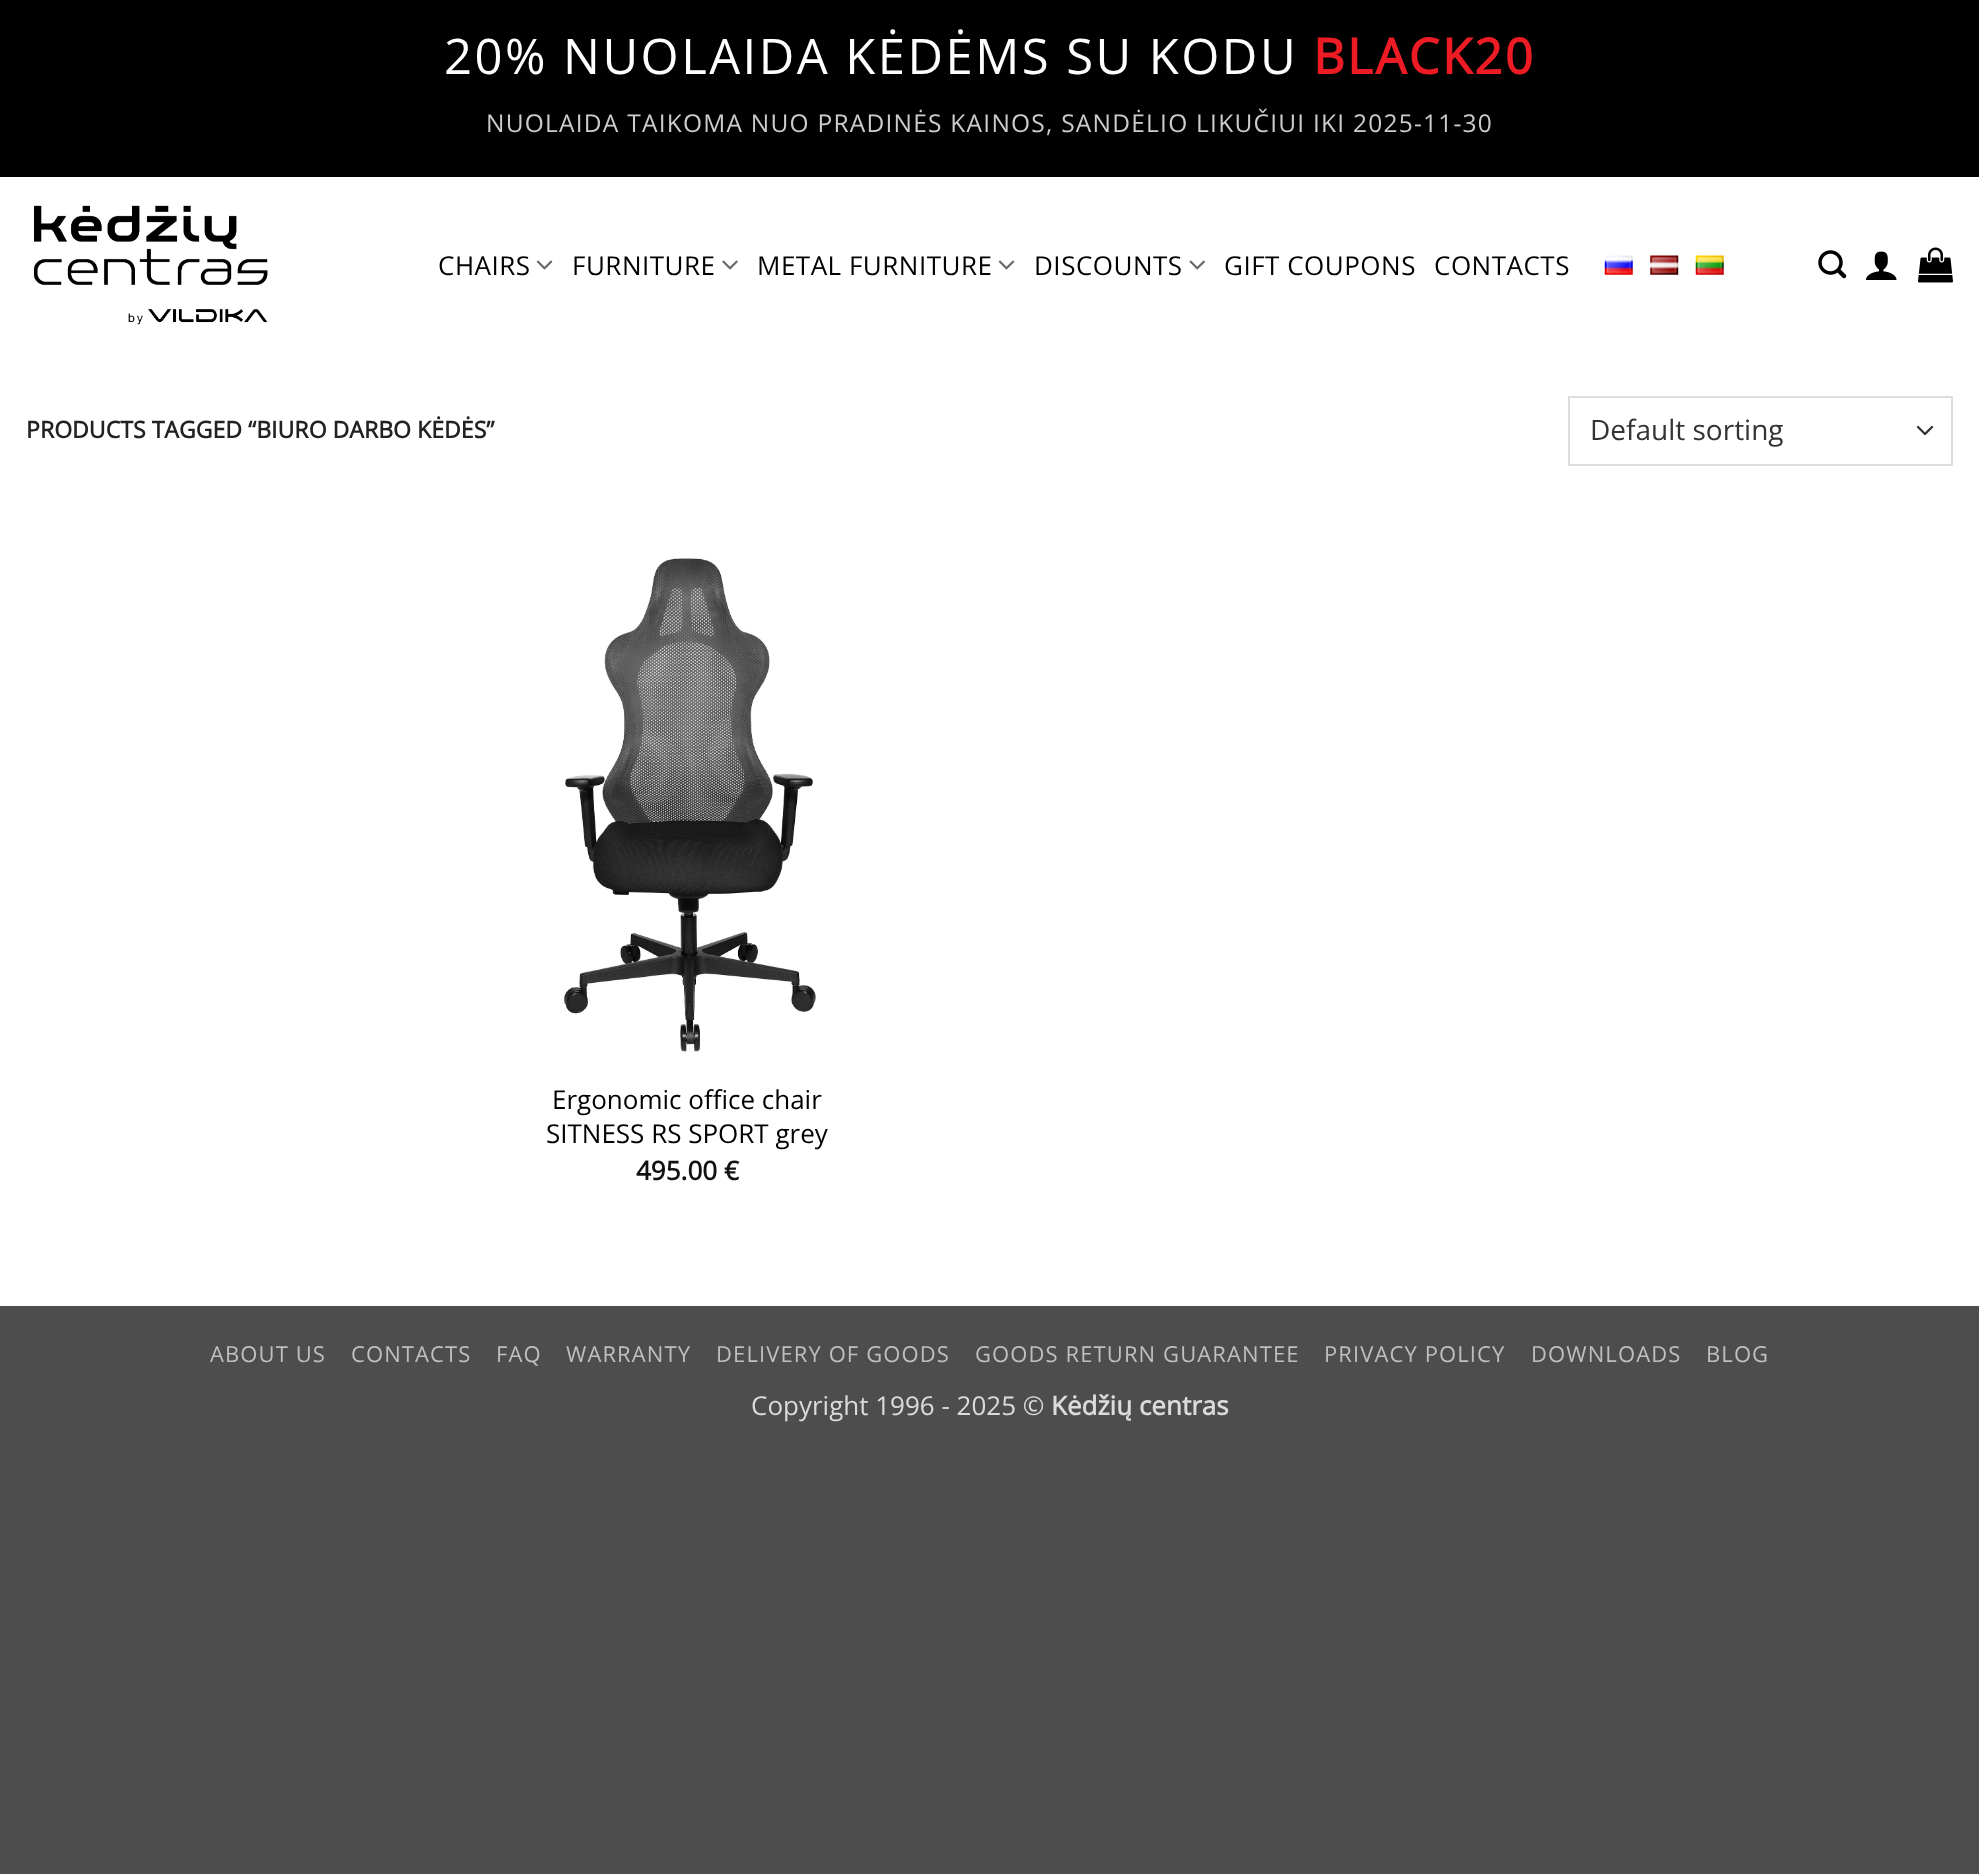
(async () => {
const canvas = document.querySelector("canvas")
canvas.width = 1979
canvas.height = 1874
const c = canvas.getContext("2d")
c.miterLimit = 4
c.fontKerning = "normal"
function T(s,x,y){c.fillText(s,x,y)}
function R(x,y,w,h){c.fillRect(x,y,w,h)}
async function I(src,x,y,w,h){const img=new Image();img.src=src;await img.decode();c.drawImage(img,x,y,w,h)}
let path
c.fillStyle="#4d4d4d"
R(0,0,1979,1874)
c.fillStyle="#fff"
R(0,177,1979,1129)
c.fillStyle="#000"
R(0,0,1979,177)
c.letterSpacing="2.45px"
c.font="49px Open Sans"
c.fillStyle="#fff"
T("20% NUOLAIDA KĖDĖMS SU KODU",444,74)
c.font="bold 49px Open Sans"
c.fillStyle="#ed1c24"
T("BLACK20",1313,74)
c.letterSpacing="1.23px"
c.font="24.5px Open Sans"
c.fillStyle="#ccc"
T("NUOLAIDA TAIKOMA NUO PRADINĖS KAINOS, SANDĖLIO LIKUČIUI IKI 2025-11-30",486,132)
await I("1.png",34,205,234,120)
c.letterSpacing="0.5px"
c.font="26px Open Sans"
c.fillStyle="#000"
T("CHAIRS",438,275)
await I("2.png",536,260,17,10)
T("FURNITURE",572,275)
await I("3.png",722,260,16,10)
T("METAL FURNITURE",757,275)
await I("2.png",998,260,17,10)
T("DISCOUNTS",1034,275)
await I("4.png",1189,260,16,10)
T("GIFT COUPONS",1224,275)
T("CONTACTS",1434,275)
await I("5.png",1604,255,29,20)
await I("6.png",1650,255,29,20)
await I("7.png",1695,255,29,20)
await I("8.png",1818,250,29,29)
await I("9.png",1866,251,31,29)
await I("10.png",1918,247,35,36)
c.letterSpacing="0px"
c.font="bold 23.1px Open Sans"
c.fillStyle="#222"
T("PRODUCTS TAGGED “BIURO DARBO KĖDĖS”",26,438)
path = new Path2D("M1918 427l7 7l7-7")
c.strokeStyle="#333"
c.lineWidth=2.3
c.lineCap="round"
c.lineJoin="round"
c.stroke(path)
c.strokeStyle="#ddd"
c.lineWidth=2
c.lineJoin="miter"
c.strokeRect(1569,397,383,68)
c.font="28px Open Sans"
c.fillStyle="#333"
T("Default sorting",1590,440)
await I("11.png",563,558,253,494)
c.font="26px Open Sans"
c.fillStyle="#000"
T("Ergonomic office chair",552,1109)
T("SITNESS RS SPORT grey",546,1143)
c.font="bold 26px Open Sans"
c.fillStyle="#111"
T("495.00 €",636,1180)
c.letterSpacing="1.1px"
c.font="22px Open Sans"
c.fillStyle="#bfbfbf"
T("ABOUT US",210,1362)
T("CONTACTS",351,1362)
T("FAQ",496,1362)
T("WARRANTY",566,1362)
T("DELIVERY OF GOODS",716,1362)
T("GOODS RETURN GUARANTEE",975,1362)
T("PRIVACY POLICY",1324,1362)
T("DOWNLOADS",1531,1362)
T("BLOG",1706,1362)
c.letterSpacing="0px"
c.font="26px Open Sans"
c.fillStyle="#dbdbdb"
T("Copyright 1996 - 2025 ©",751,1415)
c.font="bold 26px Open Sans"
T("Kėdžių centras",1051,1415)
})()
